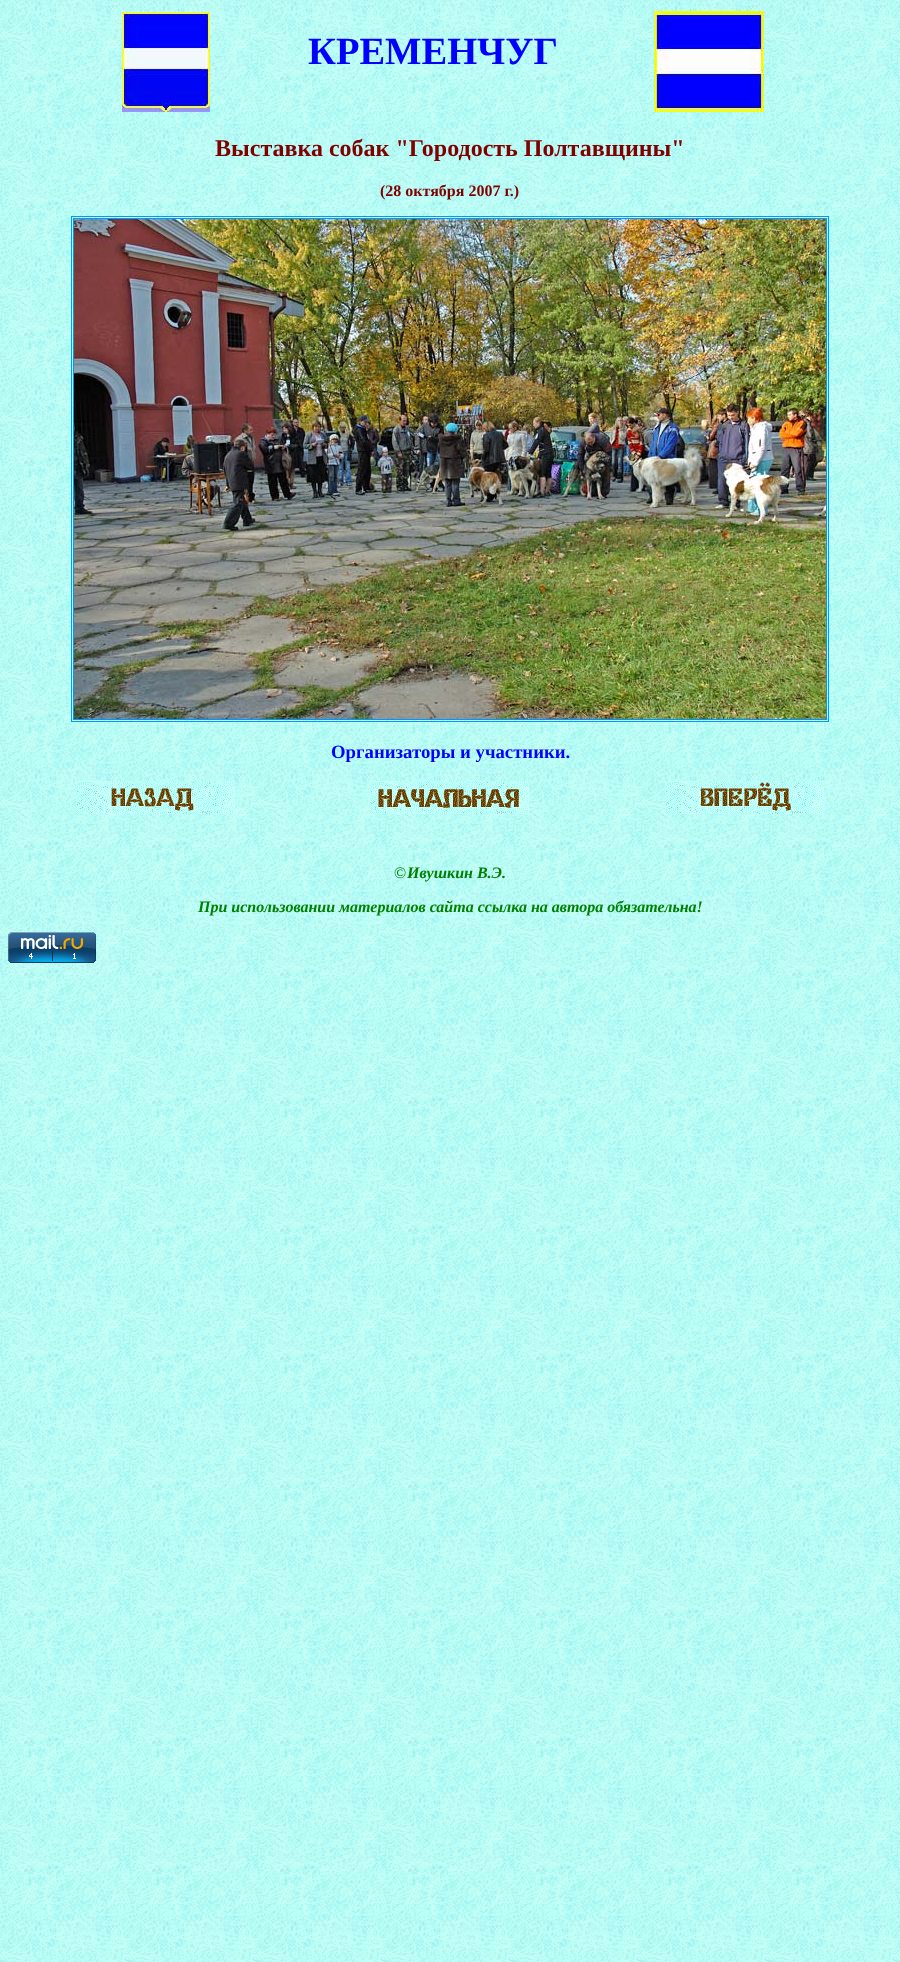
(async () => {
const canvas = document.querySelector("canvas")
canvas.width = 900
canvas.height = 1962
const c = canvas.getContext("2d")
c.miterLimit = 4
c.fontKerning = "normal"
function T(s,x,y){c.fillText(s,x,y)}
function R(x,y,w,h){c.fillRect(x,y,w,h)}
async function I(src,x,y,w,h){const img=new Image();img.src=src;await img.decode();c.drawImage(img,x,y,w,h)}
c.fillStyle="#fff"
R(0,0,900,1962)
await I("1.png",0,0,900,1962)
await I("2.png",122,12,88,100)
c.font="bold 38.5px Liberation Serif"
c.fillStyle="#00f"
T("КРЕМЕНЧУГ",308,64)
await I("3.png",654,11,110,101)
c.font="bold 24px Liberation Serif"
c.fillStyle="#800000"
T("Выставка собак \"Городость Полтавщины\"",215,156)
c.font="bold 16px Liberation Serif"
T("(28 октября 2007 г.)",380,196)
c.strokeStyle="#09f"
c.strokeRect(71.5,216.5,757,505)
c.strokeRect(73.5,218.5,753,501)
await I("4.png",74,219,752,500)
c.font="bold 18.75px Liberation Serif"
c.fillStyle="#00f"
T("Организаторы и участники.",331,758)
await I("5.png",76,781,159,33)
await I("6.png",370,781,159,33)
await I("7.png",665,781,159,33)
c.font="16px Liberation Serif"
c.fillStyle="#008000"
T("©",394,878)
c.font="italic bold 16px Liberation Serif"
T("Ивушкин В.Э.",407,878)
T("При использовании материалов сайта ссылка на автора обязательна!",198,912)
await I("8.png",8,932,88,31)
})()
